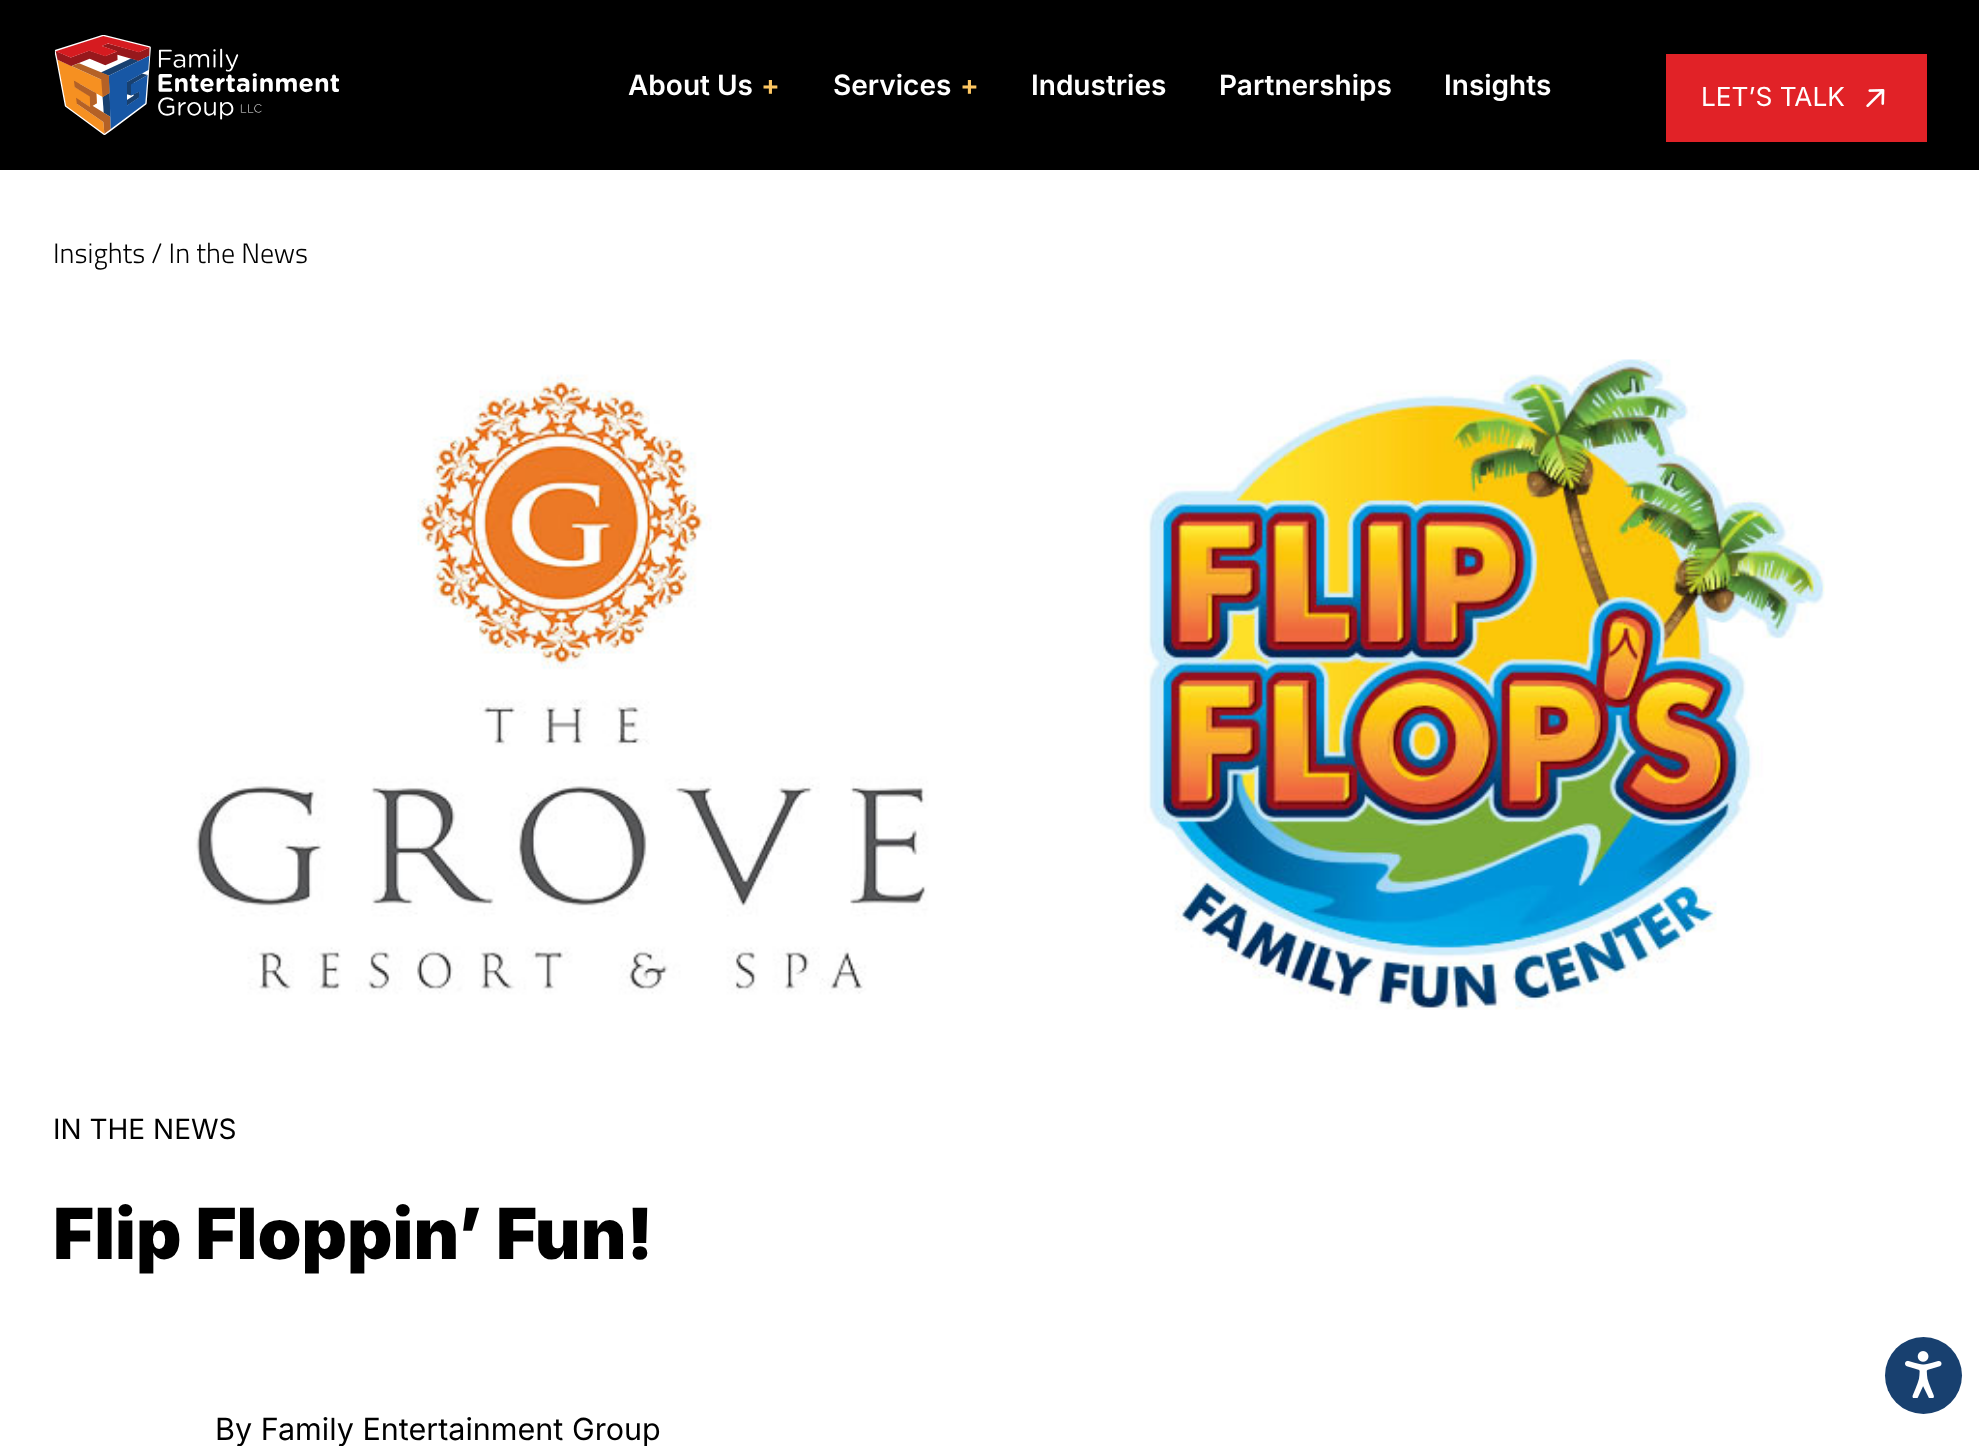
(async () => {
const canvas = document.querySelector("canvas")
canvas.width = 1979
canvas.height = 1446
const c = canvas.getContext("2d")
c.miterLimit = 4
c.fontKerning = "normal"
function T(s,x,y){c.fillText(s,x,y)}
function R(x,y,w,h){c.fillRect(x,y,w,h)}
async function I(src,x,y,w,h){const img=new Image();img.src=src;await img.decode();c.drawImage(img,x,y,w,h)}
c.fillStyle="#fff"
R(0,0,1979,1446)
c.fillStyle="#000"
R(0,0,1979,170)
await I("1.png",54,35,285,100)
c.font="600 28px Inter"
c.fillStyle="#fff"
T("About Us",628,95)
c.fillStyle="#fdc661"
T("+",761,95)
c.fillStyle="#fff"
T("Services",833,95)
c.fillStyle="#fdc661"
T("+",960,95)
c.fillStyle="#fff"
T("Industries",1031,95)
T("Partnerships",1219,95)
T("Insights",1444,95)
c.fillStyle="#e12227"
R(1666,54,261,88)
c.font="26.25px Inter"
c.fillStyle="#fff"
T("LET’S TALK",1701,106)
await I("2.png",1866,89,19,19)
c.font="300 28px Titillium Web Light"
c.fillStyle="#000"
T("Insights / In the News",53,263)
await I("3.png",194,359,1631,651)
c.font="28px Inter"
T("IN THE NEWS",53,1139)
c.font="900 70.5px Inter"
T("Flip Floppin’ Fun!",53,1259)
c.font="30.5px Inter"
T("By Family Entertainment Group",215,1440)
c.fillStyle="#18406f"
c.beginPath()
c.arc(1923.5,1375.5,38.5,0,7)
c.fill()
await I("4.png",1905,1351,37,47)
})()
